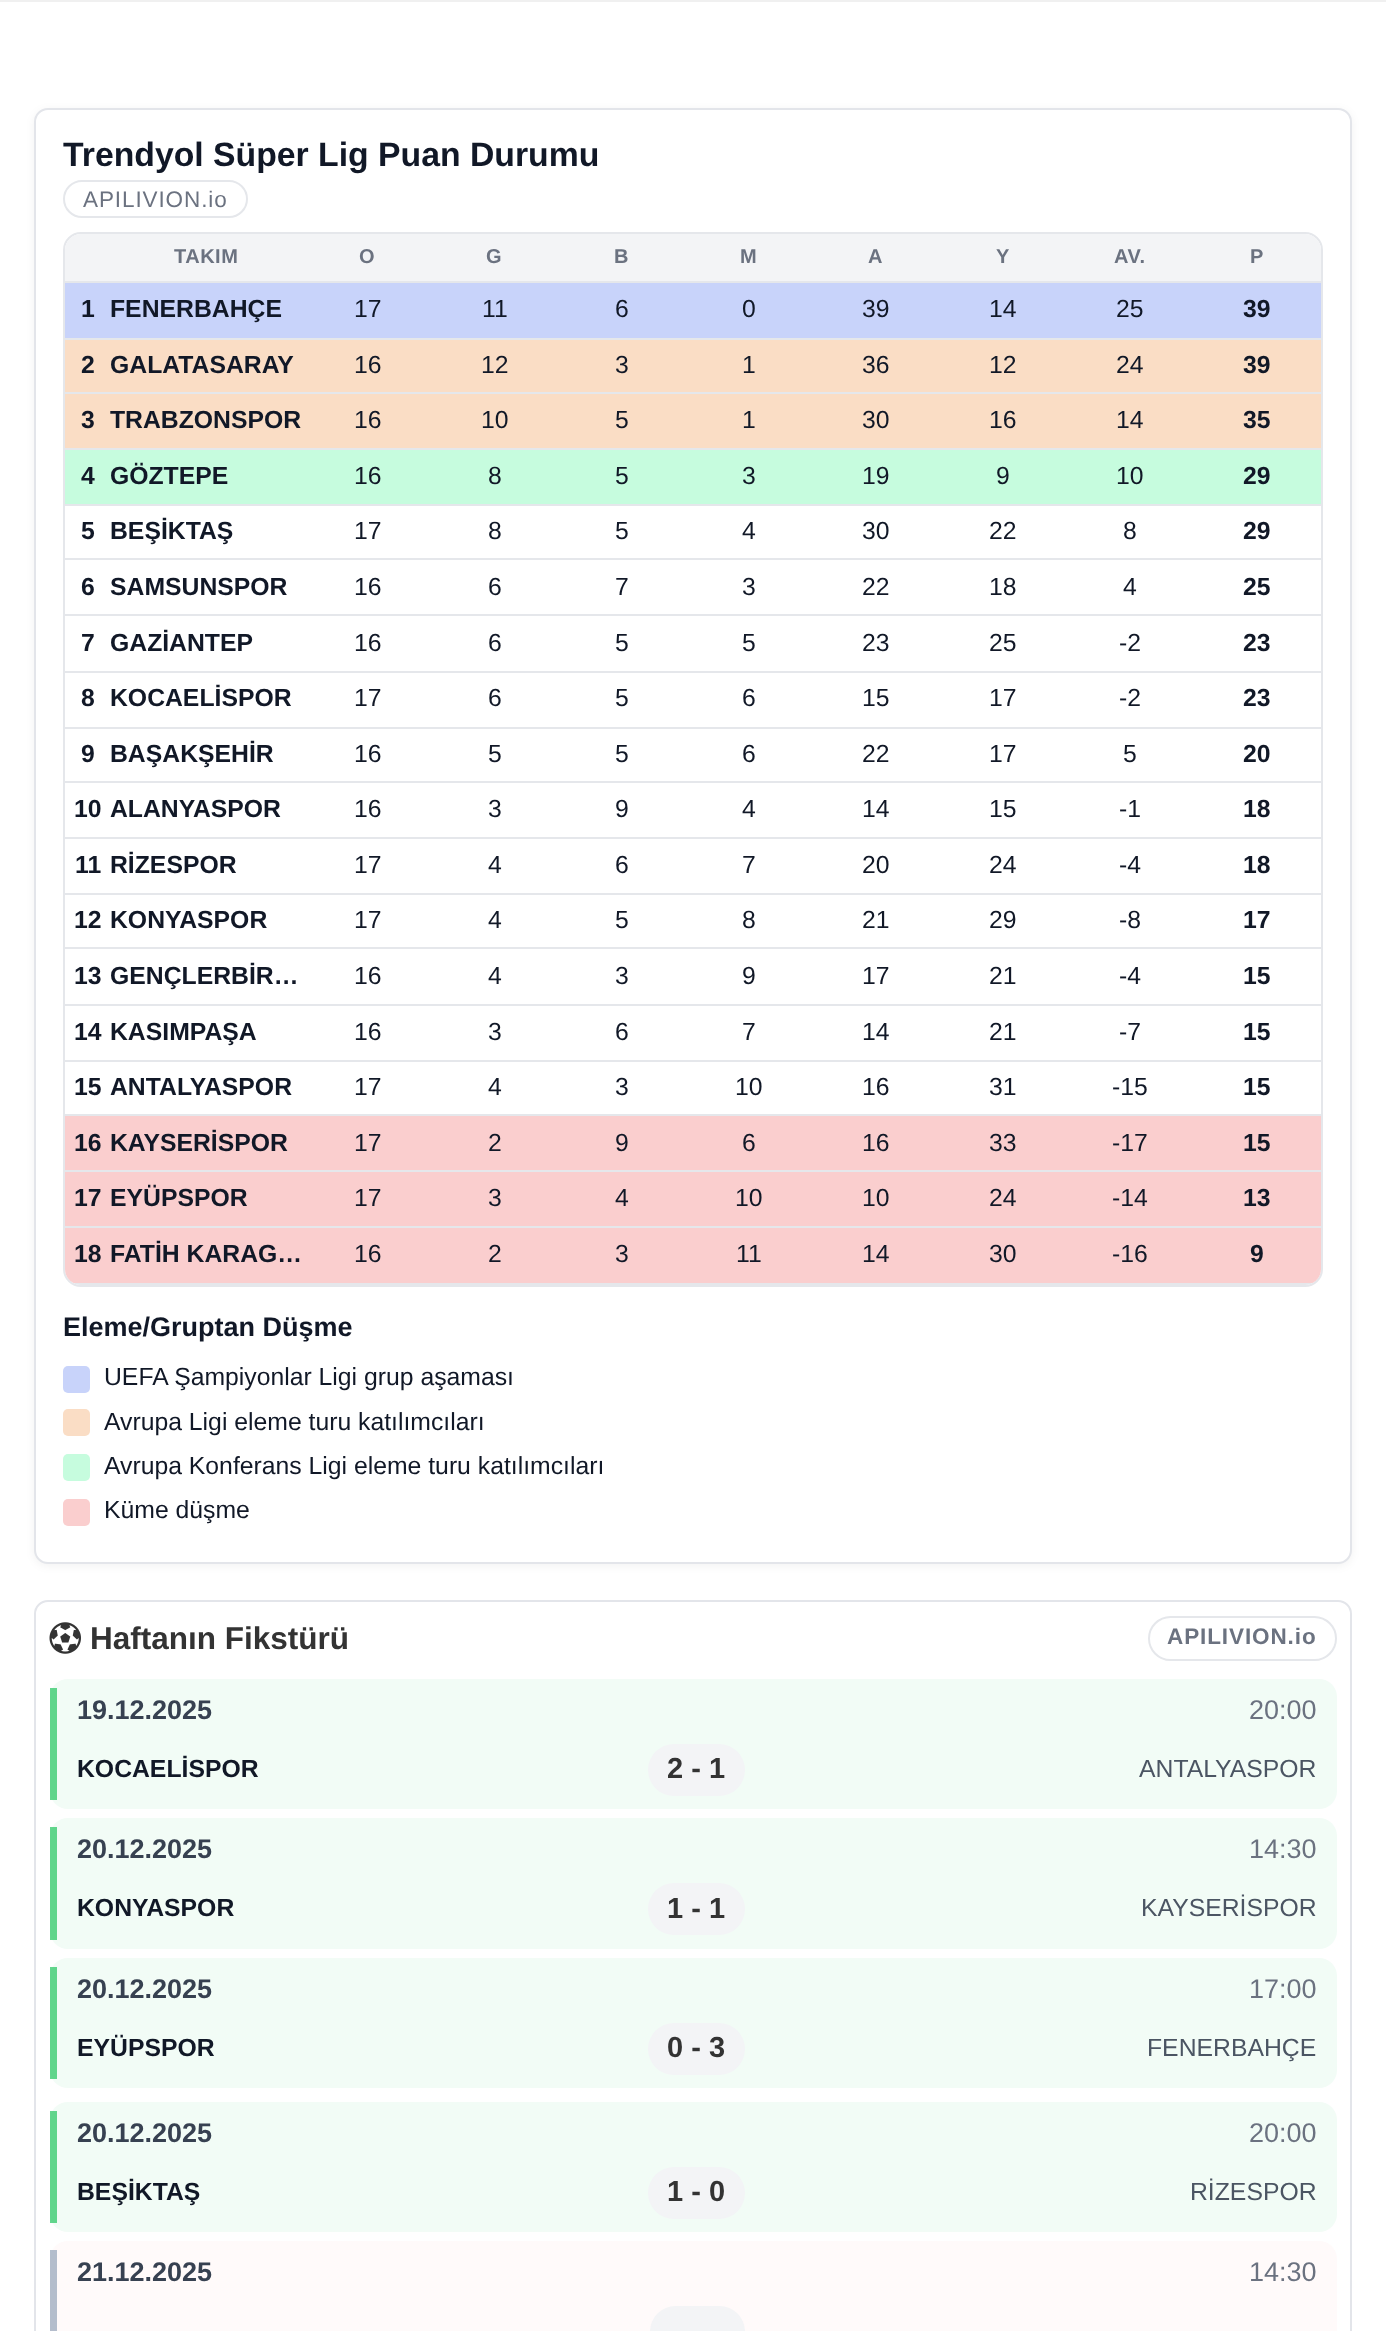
(async () => {
const canvas = document.querySelector("canvas")
canvas.width = 1386
canvas.height = 2331
const c = canvas.getContext("2d")
c.miterLimit = 4
c.fontKerning = "normal"
function T(s,x,y){c.fillText(s,x,y)}
function R(x,y,w,h){c.fillRect(x,y,w,h)}
function Q(x,y,w,h,r){c.beginPath();c.roundRect(x,y,w,h,r);c.fill()}
async function I(src,x,y,w,h){const img=new Image();img.src=src;await img.decode();c.drawImage(img,x,y,w,h)}
c.fillStyle="#fff"
R(0,0,1386,2331)
c.fillStyle="#f0f0f0"
R(0,0,1386,2)
c.fillStyle="#0000000d"
c.filter="blur(4.5px)"
c.beginPath()
c.roundRect(34,110,1318,1456,14)
c.fill()
c.filter="none"
c.fillStyle="#fff"
c.beginPath()
c.roundRect(35,109,1316,1454,13)
c.fill()
c.strokeStyle="#e3e5ea"
c.lineWidth=2
c.stroke()
c.font="bold 33.75px Liberation Sans"
c.fillStyle="#111827"
T("Trendyol Süper Lig Puan Durumu",63,166)
c.beginPath()
c.roundRect(64,181,183,36,18)
c.strokeStyle="#e5e7eb"
c.stroke()
c.letterSpacing="0.9px"
c.font="22.5px Liberation Sans"
c.fillStyle="#6b7280"
T("APILIVION.io",83,207)
c.beginPath()
c.roundRect(64,233,1258,1053,17)
c.stroke()
c.fillStyle="#f3f4f6"
c.beginPath()
c.roundRect(65,234,1256,47,[16,16,0,0])
c.fill()
c.letterSpacing="0.5px"
c.font="bold 20px Liberation Sans"
c.fillStyle="#6b7280"
T("TAKIM",174,263)
T("O",359,263)
T("G",486,263)
T("B",614,263)
T("M",740,263)
T("A",868,263)
T("Y",996,263)
T("AV.",1114,263)
c.fillStyle="#e5e7eb"
R(65,281,1256,2)
c.fillStyle="#6b7280"
T("P",1250,263)
c.fillStyle="#c8d3fa"
R(65,283,1256,55)
c.letterSpacing="0px"
c.font="bold 24.75px Liberation Sans"
c.fillStyle="#111827"
T("1",81,317)
T("FENERBAHÇE",110,317)
c.font="24.75px Liberation Sans"
T("17",354,317)
T("11",482,317)
T("6",615,317)
T("0",742,317)
T("39",862,317)
T("14",989,317)
T("25",1116,317)
c.fillStyle="#e5e7eb"
R(65,338,1256,2)
c.font="bold 24.75px Liberation Sans"
c.fillStyle="#111827"
T("39",1243,317)
c.fillStyle="#faddc5"
R(65,340,1256,52)
c.fillStyle="#111827"
T("2",81,373)
T("GALATASARAY",110,373)
c.font="24.75px Liberation Sans"
T("16",354,373)
T("12",481,373)
T("3",615,373)
T("1",742,373)
T("36",862,373)
T("12",989,373)
T("24",1116,373)
c.fillStyle="#e5e7eb"
R(65,392,1256,2)
c.font="bold 24.75px Liberation Sans"
c.fillStyle="#111827"
T("39",1243,373)
c.fillStyle="#faddc5"
R(65,394,1256,54)
c.fillStyle="#111827"
T("3",81,428)
T("TRABZONSPOR",110,428)
c.font="24.75px Liberation Sans"
T("16",354,428)
T("10",481,428)
T("5",615,428)
T("1",742,428)
T("30",862,428)
T("16",989,428)
T("14",1116,428)
c.fillStyle="#e5e7eb"
R(65,448,1256,2)
c.font="bold 24.75px Liberation Sans"
c.fillStyle="#111827"
T("35",1243,428)
c.fillStyle="#c6fcde"
R(65,450,1256,54)
c.fillStyle="#111827"
T("4",81,484)
T("GÖZTEPE",110,484)
c.font="24.75px Liberation Sans"
T("16",354,484)
T("8",488,484)
T("5",615,484)
T("3",742,484)
T("19",862,484)
T("9",996,484)
T("10",1116,484)
c.fillStyle="#e5e7eb"
R(65,504,1256,2)
c.font="bold 24.75px Liberation Sans"
c.fillStyle="#111827"
T("29",1243,484)
T("5",81,539)
T("BEŞİKTAŞ",110,539)
c.font="24.75px Liberation Sans"
T("17",354,539)
T("8",488,539)
T("5",615,539)
T("4",742,539)
T("30",862,539)
T("22",989,539)
T("8",1123,539)
c.fillStyle="#e5e7eb"
R(65,558,1256,2)
c.font="bold 24.75px Liberation Sans"
c.fillStyle="#111827"
T("29",1243,539)
T("6",81,595)
T("SAMSUNSPOR",110,595)
c.font="24.75px Liberation Sans"
T("16",354,595)
T("6",488,595)
T("7",615,595)
T("3",742,595)
T("22",862,595)
T("18",989,595)
T("4",1123,595)
c.fillStyle="#e5e7eb"
R(65,614,1256,2)
c.font="bold 24.75px Liberation Sans"
c.fillStyle="#111827"
T("25",1243,595)
T("7",81,651)
T("GAZİANTEP",110,651)
c.font="24.75px Liberation Sans"
T("16",354,651)
T("6",488,651)
T("5",615,651)
T("5",742,651)
T("23",862,651)
T("25",989,651)
T("-2",1119,651)
c.fillStyle="#e5e7eb"
R(65,671,1256,2)
c.font="bold 24.75px Liberation Sans"
c.fillStyle="#111827"
T("23",1243,651)
T("8",81,706)
T("KOCAELİSPOR",110,706)
c.font="24.75px Liberation Sans"
T("17",354,706)
T("6",488,706)
T("5",615,706)
T("6",742,706)
T("15",862,706)
T("17",989,706)
T("-2",1119,706)
c.fillStyle="#e5e7eb"
R(65,727,1256,2)
c.font="bold 24.75px Liberation Sans"
c.fillStyle="#111827"
T("23",1243,706)
T("9",81,762)
T("BAŞAKŞEHİR",110,762)
c.font="24.75px Liberation Sans"
T("16",354,762)
T("5",488,762)
T("5",615,762)
T("6",742,762)
T("22",862,762)
T("17",989,762)
T("5",1123,762)
c.fillStyle="#e5e7eb"
R(65,781,1256,2)
c.font="bold 24.75px Liberation Sans"
c.fillStyle="#111827"
T("20",1243,762)
T("10",74,817)
T("ALANYASPOR",110,817)
c.font="24.75px Liberation Sans"
T("16",354,817)
T("3",488,817)
T("9",615,817)
T("4",742,817)
T("14",862,817)
T("15",989,817)
T("-1",1119,817)
c.fillStyle="#e5e7eb"
R(65,837,1256,2)
c.font="bold 24.75px Liberation Sans"
c.fillStyle="#111827"
T("18",1243,817)
T("11",75,873)
T("RİZESPOR",110,873)
c.font="24.75px Liberation Sans"
T("17",354,873)
T("4",488,873)
T("6",615,873)
T("7",742,873)
T("20",862,873)
T("24",989,873)
T("-4",1119,873)
c.fillStyle="#e5e7eb"
R(65,893,1256,2)
c.font="bold 24.75px Liberation Sans"
c.fillStyle="#111827"
T("18",1243,873)
T("12",74,928)
T("KONYASPOR",110,928)
c.font="24.75px Liberation Sans"
T("17",354,928)
T("4",488,928)
T("5",615,928)
T("8",742,928)
T("21",862,928)
T("29",989,928)
T("-8",1119,928)
c.fillStyle="#e5e7eb"
R(65,947,1256,2)
c.font="bold 24.75px Liberation Sans"
c.fillStyle="#111827"
T("17",1243,928)
T("13",74,984)
T("GENÇLERBİR…",110,984)
c.font="24.75px Liberation Sans"
T("16",354,984)
T("4",488,984)
T("3",615,984)
T("9",742,984)
T("17",862,984)
T("21",989,984)
T("-4",1119,984)
c.fillStyle="#e5e7eb"
R(65,1004,1256,2)
c.font="bold 24.75px Liberation Sans"
c.fillStyle="#111827"
T("15",1243,984)
T("14",74,1040)
T("KASIMPAŞA",110,1040)
c.font="24.75px Liberation Sans"
T("16",354,1040)
T("3",488,1040)
T("6",615,1040)
T("7",742,1040)
T("14",862,1040)
T("21",989,1040)
T("-7",1119,1040)
c.fillStyle="#e5e7eb"
R(65,1060,1256,2)
c.font="bold 24.75px Liberation Sans"
c.fillStyle="#111827"
T("15",1243,1040)
T("15",74,1095)
T("ANTALYASPOR",110,1095)
c.font="24.75px Liberation Sans"
T("17",354,1095)
T("4",488,1095)
T("3",615,1095)
T("10",735,1095)
T("16",862,1095)
T("31",989,1095)
T("-15",1112,1095)
c.fillStyle="#e5e7eb"
R(65,1114,1256,2)
c.font="bold 24.75px Liberation Sans"
c.fillStyle="#111827"
T("15",1243,1095)
c.fillStyle="#facece"
R(65,1116,1256,54)
c.fillStyle="#111827"
T("16",74,1151)
T("KAYSERİSPOR",110,1151)
c.font="24.75px Liberation Sans"
T("17",354,1151)
T("2",488,1151)
T("9",615,1151)
T("6",742,1151)
T("16",862,1151)
T("33",989,1151)
T("-17",1112,1151)
c.fillStyle="#e5e7eb"
R(65,1170,1256,2)
c.font="bold 24.75px Liberation Sans"
c.fillStyle="#111827"
T("15",1243,1151)
c.fillStyle="#facece"
R(65,1172,1256,54)
c.fillStyle="#111827"
T("17",74,1206)
T("EYÜPSPOR",110,1206)
c.font="24.75px Liberation Sans"
T("17",354,1206)
T("3",488,1206)
T("4",615,1206)
T("10",735,1206)
T("10",862,1206)
T("24",989,1206)
T("-14",1112,1206)
c.fillStyle="#e5e7eb"
R(65,1226,1256,2)
c.font="bold 24.75px Liberation Sans"
c.fillStyle="#111827"
T("13",1243,1206)
c.save()
c.beginPath()
c.roundRect(65,234,1256,1051,16)
c.clip()
c.fillStyle="#facece"
R(65,1228,1256,55)
c.fillStyle="#e5e7eb"
R(1193,1283,128,2)
c.restore()
c.fillStyle="#e5e7eb"
R(110,1283,1085,2)
c.save()
c.beginPath()
c.roundRect(65,234,1256,1051,16)
c.clip()
R(65,1283,48,2)
c.restore()
c.fillStyle="#111827"
T("18",74,1262)
T("FATİH KARAG…",110,1262)
c.font="24.75px Liberation Sans"
T("16",354,1262)
T("2",488,1262)
T("3",615,1262)
T("11",736,1262)
T("14",862,1262)
T("30",989,1262)
T("-16",1112,1262)
c.font="bold 24.75px Liberation Sans"
T("9",1250,1262)
c.font="bold 27px Liberation Sans"
T("Eleme/Gruptan Düşme",63,1336)
c.fillStyle="#c8d3fa"
Q(63,1366,27,27,5)
c.font="24.75px Liberation Sans"
c.fillStyle="#111827"
T("UEFA Şampiyonlar Ligi grup aşaması",104,1385)
c.fillStyle="#faddc5"
Q(63,1409,27,27,5)
c.fillStyle="#111827"
T("Avrupa Ligi eleme turu katılımcıları",104,1430)
c.fillStyle="#c6fcde"
Q(63,1454,27,27,5)
c.fillStyle="#111827"
T("Avrupa Konferans Ligi eleme turu katılımcıları",104,1474)
c.fillStyle="#facece"
Q(63,1499,27,27,5)
c.fillStyle="#111827"
T("Küme düşme",104,1518)
c.beginPath()
c.roundRect(35,1601,1316,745,13)
c.strokeStyle="#e3e5ea"
c.stroke()
await I("1.png",49,1622,32,32)
c.font="bold 31.5px Liberation Sans"
c.fillStyle="#333"
T("Haftanın Fikstürü",90,1649)
c.beginPath()
c.roundRect(1149,1617,187,43,21.5)
c.strokeStyle="#e5e7eb"
c.stroke()
c.letterSpacing="0.9px"
c.font="bold 22.5px Liberation Sans"
c.fillStyle="#6b7280"
T("APILIVION.io",1167,1644)
c.fillStyle="#f2fcf6"
Q(50,1679,1287,130,18)
c.fillStyle="#22c55eb3"
R(50,1688,7,112)
c.letterSpacing="0px"
c.font="bold 27px Liberation Sans"
c.fillStyle="#374151"
T("19.12.2025",77,1719)
c.font="27px Liberation Sans"
c.fillStyle="#6b7280"
T("20:00",1249,1719)
c.font="bold 24.75px Liberation Sans"
c.fillStyle="#111827"
T("KOCAELİSPOR",77,1777)
c.fillStyle="#f3f4f6"
Q(648,1744,97,52,26)
c.font="bold 29px Liberation Sans"
c.fillStyle="#333"
T("2 - 1",667,1778)
c.font="24.75px Liberation Sans"
c.fillStyle="#4b5563"
T("ANTALYASPOR",1139,1777)
c.fillStyle="#f2fcf6"
Q(50,1818,1287,131,18)
c.fillStyle="#22c55eb3"
R(50,1827,7,113)
c.font="bold 27px Liberation Sans"
c.fillStyle="#374151"
T("20.12.2025",77,1858)
c.font="27px Liberation Sans"
c.fillStyle="#6b7280"
T("14:30",1249,1858)
c.font="bold 24.75px Liberation Sans"
c.fillStyle="#111827"
T("KONYASPOR",77,1916)
c.fillStyle="#f3f4f6"
Q(648,1883,97,52,26)
c.font="bold 29px Liberation Sans"
c.fillStyle="#333"
T("1 - 1",667,1918)
c.font="24.75px Liberation Sans"
c.fillStyle="#4b5563"
T("KAYSERİSPOR",1141,1916)
c.fillStyle="#f2fcf6"
Q(50,1958,1287,130,18)
c.fillStyle="#22c55eb3"
R(50,1967,7,112)
c.font="bold 27px Liberation Sans"
c.fillStyle="#374151"
T("20.12.2025",77,1998)
c.font="27px Liberation Sans"
c.fillStyle="#6b7280"
T("17:00",1249,1998)
c.font="bold 24.75px Liberation Sans"
c.fillStyle="#111827"
T("EYÜPSPOR",77,2056)
c.fillStyle="#f3f4f6"
Q(648,2023,97,52,26)
c.font="bold 29px Liberation Sans"
c.fillStyle="#333"
T("0 - 3",667,2057)
c.font="24.75px Liberation Sans"
c.fillStyle="#4b5563"
T("FENERBAHÇE",1147,2056)
c.fillStyle="#f2fcf6"
Q(50,2102,1287,130,18)
c.fillStyle="#22c55eb3"
R(50,2111,7,112)
c.font="bold 27px Liberation Sans"
c.fillStyle="#374151"
T("20.12.2025",77,2142)
c.font="27px Liberation Sans"
c.fillStyle="#6b7280"
T("20:00",1249,2142)
c.font="bold 24.75px Liberation Sans"
c.fillStyle="#111827"
T("BEŞİKTAŞ",77,2200)
c.fillStyle="#f3f4f6"
Q(648,2167,97,52,26)
c.font="bold 29px Liberation Sans"
c.fillStyle="#333"
T("1 - 0",667,2201)
c.font="24.75px Liberation Sans"
c.fillStyle="#4b5563"
T("RİZESPOR",1190,2200)
c.fillStyle="#fffafa"
Q(50,2241,1287,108,18)
c.fillStyle="#94a3b8b3"
R(50,2250,7,81)
c.font="bold 27px Liberation Sans"
c.fillStyle="#374151"
T("21.12.2025",77,2281)
c.font="27px Liberation Sans"
c.fillStyle="#6b7280"
T("14:30",1249,2281)
c.fillStyle="#f3f4f6"
Q(650,2306,95,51,26)
})()
